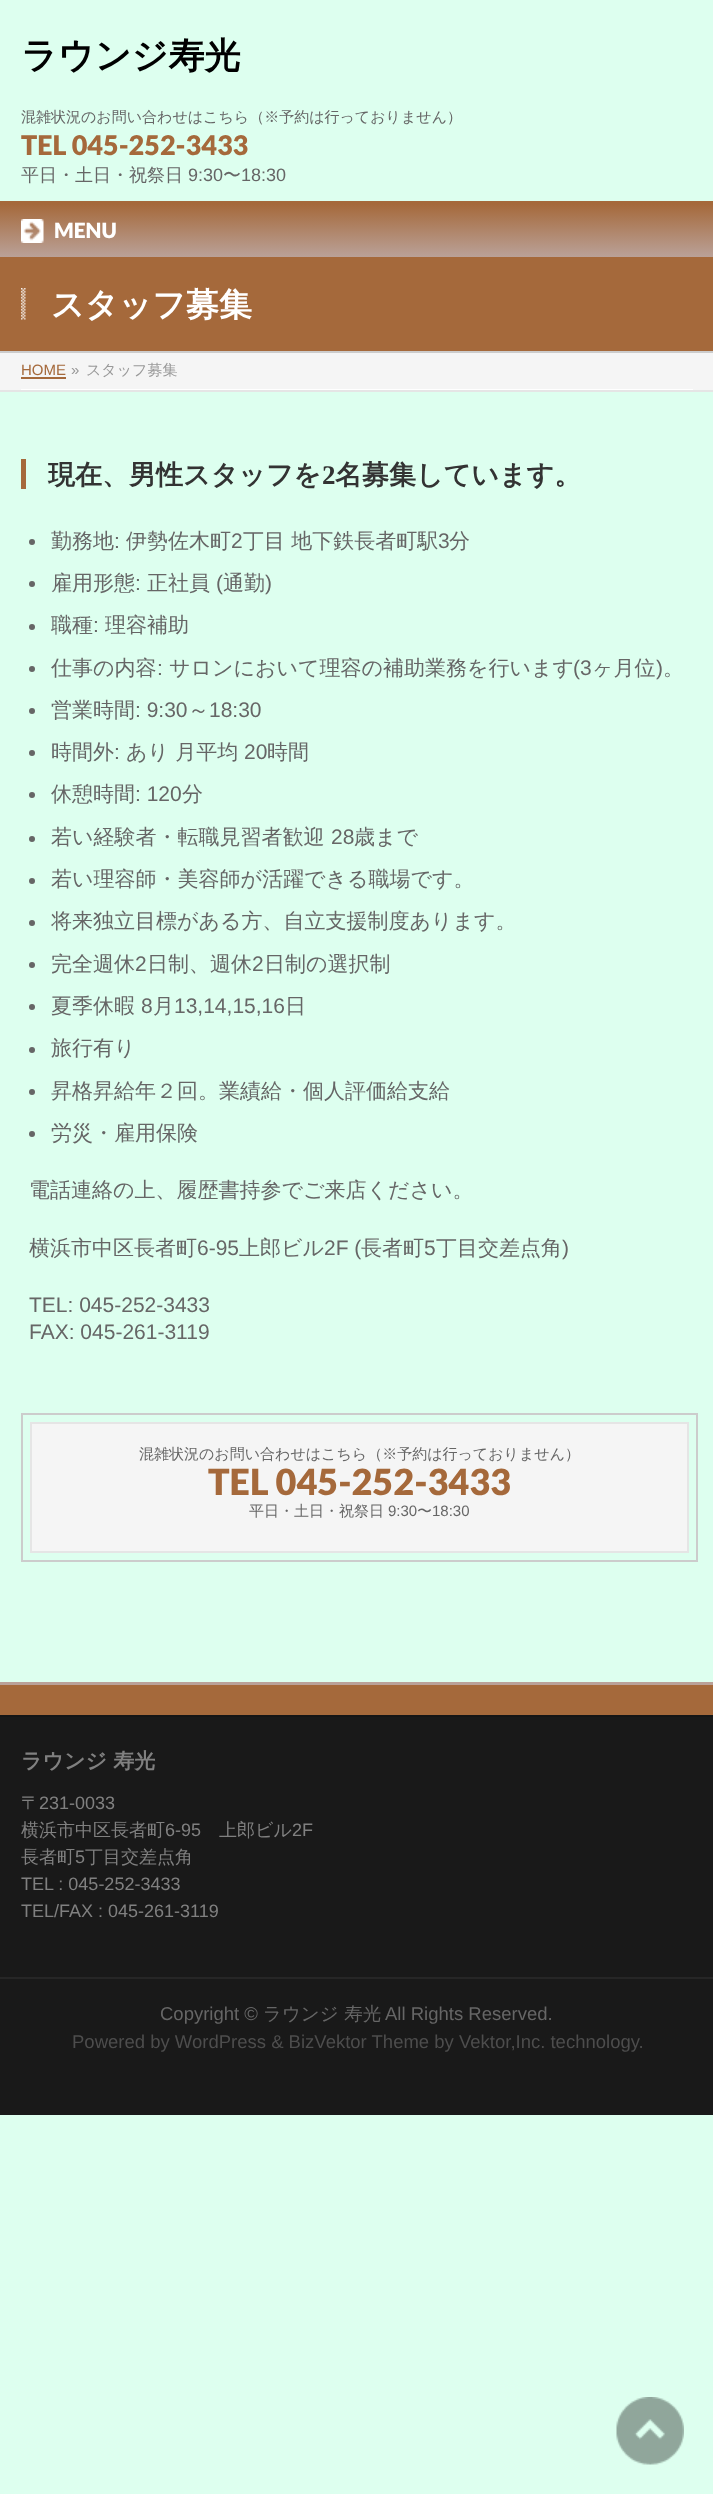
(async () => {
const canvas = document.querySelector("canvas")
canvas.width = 713
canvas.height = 2494
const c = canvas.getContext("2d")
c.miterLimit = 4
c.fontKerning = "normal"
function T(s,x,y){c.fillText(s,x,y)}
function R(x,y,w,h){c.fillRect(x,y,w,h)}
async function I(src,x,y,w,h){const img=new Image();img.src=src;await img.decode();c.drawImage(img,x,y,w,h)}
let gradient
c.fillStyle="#ddffef"
R(0,0,713,2494)
c.font="bold 36px WenQuanYi Zen Hei"
c.fillStyle="#000"
T("ラウンジ寿光",21,68)
c.font="500 15px WenQuanYi Zen Hei"
c.fillStyle="#666"
T("混雑状況のお問い合わせはこちら（※予約は行っておりません）",21,122)
c.font="900 27px Lato"
c.fillStyle="#a5693b"
T("TEL 045-252-3433",21,155)
c.font="500 18px WenQuanYi Zen Hei"
c.fillStyle="#666"
T("平日・土日・祝祭日",21,181)
c.font="18px Liberation Sans"
T("9:30",188,181)
c.font="500 18px WenQuanYi Zen Hei"
T("〜",223,181)
c.font="18px Liberation Sans"
T("18:30",241,181)
c.fillStyle="#a5693b"
R(0,201,713,3)
gradient = c.createLinearGradient(356,204,356,257)
gradient.addColorStop(0,"#a5693b")
gradient.addColorStop(1,"#baa198")
c.fillStyle = gradient
R(0,204,713,53)
await I("1.png",21,219,23,24)
c.font="900 21px Lato"
c.fillStyle="#fff"
T("MENU",54,238)
c.fillStyle="#a5693b"
R(0,257,713,94)
c.fillStyle="#ccc"
R(0,351,713,2)
await I("2.png",21,288,5,32)
c.font="bold 33px WenQuanYi Zen Hei"
c.fillStyle="#fff"
T("スタッフ募集",51,316)
c.fillStyle="#f5f5f5"
R(0,353,713,37)
c.fillStyle="#e5e5e5"
R(0,390,713,2)
c.fillStyle="#fff"
R(21,389,672,1)
c.font="15px Liberation Sans"
c.fillStyle="#a5693b"
T("HOME",21,375)
R(21,377,45,2)
c.fillStyle="#999"
T("»",71,375)
c.font="500 15px WenQuanYi Zen Hei"
T("スタッフ募集",86,375)
c.fillStyle="#a5693b"
R(21,459,5,30)
c.font="bold 27px WenQuanYi Zen Hei"
c.fillStyle="#333"
T("現在、男性スタッフを",48,484)
c.font="bold 27px Liberation Serif"
T("2",322,484)
c.font="bold 27px WenQuanYi Zen Hei"
T("名募集しています。",335,484)
c.fillStyle="#666"
c.beginPath()
c.arc(32,542,3,0,7)
c.fill()
c.font="500 21px WenQuanYi Zen Hei"
T("勤務地",51,548)
c.font="21px Liberation Sans"
T(":",114,548)
c.font="500 21px WenQuanYi Zen Hei"
T("伊勢佐木町",126,548)
c.font="21px Liberation Sans"
T("2",231,548)
c.font="500 21px WenQuanYi Zen Hei"
T("丁目 地下鉄長者町駅",243,548)
c.font="21px Liberation Sans"
T("3",438,548)
c.font="500 21px WenQuanYi Zen Hei"
T("分",449,548)
c.beginPath()
c.arc(32,584,3,0,7)
c.fill()
T("雇用形態",51,590)
c.font="21px Liberation Sans"
T(":",135,590)
c.font="500 21px WenQuanYi Zen Hei"
T("正社員",147,590)
c.font="21px Liberation Sans"
T("(",216,590)
c.font="500 21px WenQuanYi Zen Hei"
T("通勤",223,590)
c.font="21px Liberation Sans"
T(")",265,590)
c.beginPath()
c.arc(32,627,3,0,7)
c.fill()
c.font="500 21px WenQuanYi Zen Hei"
T("職種",51,632)
c.font="21px Liberation Sans"
T(":",93,632)
c.font="500 21px WenQuanYi Zen Hei"
T("理容補助",105,632)
c.beginPath()
c.arc(32,669,3,0,7)
c.fill()
T("仕事の内容",51,675)
c.font="21px Liberation Sans"
T(":",157,675)
c.font="500 21px WenQuanYi Zen Hei"
T("サロンにおいて理容の補助業務を行います",169,675)
c.font="21px Liberation Sans"
T("(3",573,675)
c.font="500 21px WenQuanYi Zen Hei"
T("ヶ月位",592,675)
c.font="21px Liberation Sans"
T(")",656,675)
c.font="500 21px WenQuanYi Zen Hei"
T("。",663,675)
c.beginPath()
c.arc(32,711,3,0,7)
c.fill()
T("営業時間",51,717)
c.font="21px Liberation Sans"
T(": 9:30",135,717)
c.font="500 21px WenQuanYi Zen Hei"
T("～",188,717)
c.font="21px Liberation Sans"
T("18:30",209,717)
c.beginPath()
c.arc(32,753,3,0,7)
c.fill()
c.font="500 21px WenQuanYi Zen Hei"
T("時間外",51,759)
c.font="21px Liberation Sans"
T(":",114,759)
c.font="500 21px WenQuanYi Zen Hei"
T("あり 月平均",126,759)
c.font="21px Liberation Sans"
T("20",244,759)
c.font="500 21px WenQuanYi Zen Hei"
T("時間",267,759)
c.beginPath()
c.arc(32,795,3,0,7)
c.fill()
T("休憩時間",51,801)
c.font="21px Liberation Sans"
T(": 120",135,801)
c.font="500 21px WenQuanYi Zen Hei"
T("分",182,801)
c.beginPath()
c.arc(32,839,3,0,7)
c.fill()
T("若い経験者・転職見習者歓迎",51,844)
c.font="21px Liberation Sans"
T("28",331,844)
c.font="500 21px WenQuanYi Zen Hei"
T("歳まで",354,844)
c.beginPath()
c.arc(32,881,3,0,7)
c.fill()
T("若い理容師・美容師が活躍できる職場です。",51,886)
c.beginPath()
c.arc(32,923,3,0,7)
c.fill()
T("将来独立目標がある方、自立支援制度あります。",51,928)
c.beginPath()
c.arc(32,965,3,0,7)
c.fill()
T("完全週休",51,971)
c.font="21px Liberation Sans"
T("2",135,971)
c.font="500 21px WenQuanYi Zen Hei"
T("日制、週休",147,971)
c.font="21px Liberation Sans"
T("2",252,971)
c.font="500 21px WenQuanYi Zen Hei"
T("日制の選択制",264,971)
c.beginPath()
c.arc(32,1007,3,0,7)
c.fill()
T("夏季休暇",51,1013)
c.font="21px Liberation Sans"
T("8",141,1013)
c.font="500 21px WenQuanYi Zen Hei"
T("月",153,1013)
c.font="21px Liberation Sans"
T("13,14,15,16",174,1013)
c.font="500 21px WenQuanYi Zen Hei"
T("日",285,1013)
c.beginPath()
c.arc(32,1050,3,0,7)
c.fill()
T("旅行有り",51,1055)
c.beginPath()
c.arc(32,1092,3,0,7)
c.fill()
T("昇格昇給年２回。業績給・個人評価給支給",51,1098)
c.beginPath()
c.arc(32,1134,3,0,7)
c.fill()
T("労災・雇用保険",51,1140)
T("電話連絡の上、履歴書持参でご来店ください。",29,1197)
T("横浜市中区長者町",29,1255)
c.font="21px Liberation Sans"
T("6-95",197,1255)
c.font="500 21px WenQuanYi Zen Hei"
T("上郎ビル",239,1255)
c.font="21px Liberation Sans"
T("2F (",324,1255)
c.font="500 21px WenQuanYi Zen Hei"
T("長者町",361,1255)
c.font="21px Liberation Sans"
T("5",424,1255)
c.font="500 21px WenQuanYi Zen Hei"
T("丁目交差点角",436,1255)
c.font="21px Liberation Sans"
T(")",562,1255)
T("TEL: 045-252-3433",29,1312)
T("FAX: 045-261-3119",29,1339)
c.strokeStyle="#ccc"
c.lineWidth=2
c.strokeRect(22,1414,675,147)
c.fillStyle="#f5f5f5"
c.beginPath()
c.rect(31,1423,657,129)
c.fill()
c.strokeStyle="#e5e5e5"
c.stroke()
c.font="500 15px WenQuanYi Zen Hei"
c.fillStyle="#666"
T("混雑状況のお問い合わせはこちら（※予約は行っておりません）",139,1459)
c.font="900 36px Lato"
c.fillStyle="#a5693b"
T("TEL 045-252-3433",208,1495)
c.font="500 15px WenQuanYi Zen Hei"
c.fillStyle="#666"
T("平日・土日・祝祭日",249,1516)
c.font="15px Liberation Sans"
T("9:30",388,1516)
c.font="500 15px WenQuanYi Zen Hei"
T("〜",417,1516)
c.font="15px Liberation Sans"
T("18:30",432,1516)
c.fillStyle="#a5693b"
R(0,1685,713,30)
c.fillStyle="#baa198"
R(0,1682,713,3)
c.fillStyle="#191919"
R(0,1717,713,260)
c.fillStyle="#151515"
R(0,1715,713,2)
c.font="bold 21px WenQuanYi Zen Hei"
c.fillStyle="#808080"
T("ラウンジ 寿光",21,1768)
c.font="500 18px WenQuanYi Zen Hei"
T("〒",21,1809)
c.font="18px Liberation Sans"
T("231-0033",39,1809)
c.font="500 18px WenQuanYi Zen Hei"
T("横浜市中区長者町",21,1836)
c.font="18px Liberation Sans"
T("6-95",165,1836)
c.font="500 18px WenQuanYi Zen Hei"
T("上郎ビル",219,1836)
c.font="18px Liberation Sans"
T("2F",292,1836)
c.font="500 18px WenQuanYi Zen Hei"
T("長者町",21,1863)
c.font="18px Liberation Sans"
T("5",75,1863)
c.font="500 18px WenQuanYi Zen Hei"
T("丁目交差点角",85,1863)
c.font="18px Liberation Sans"
T("TEL : 045-252-3433",21,1890)
T("TEL/FAX : 045-261-3119",21,1917)
c.fillStyle="#191919"
R(0,1979,713,136)
c.fillStyle="#262626"
R(0,1977,713,2)
c.font="18.5px Liberation Sans"
c.fillStyle="#666"
T("Copyright ©",160,2020)
c.font="500 18.5px WenQuanYi Zen Hei"
T("ラウンジ 寿光",263,2020)
c.font="18.5px Liberation Sans"
T("All Rights Reserved.",385,2020)
c.fillStyle="#4d4d4d"
T("Powered by WordPress & BizVektor Theme by Vektor,Inc. technology.",72,2048)
await I("3.png",616,2397,68,68)
})()
